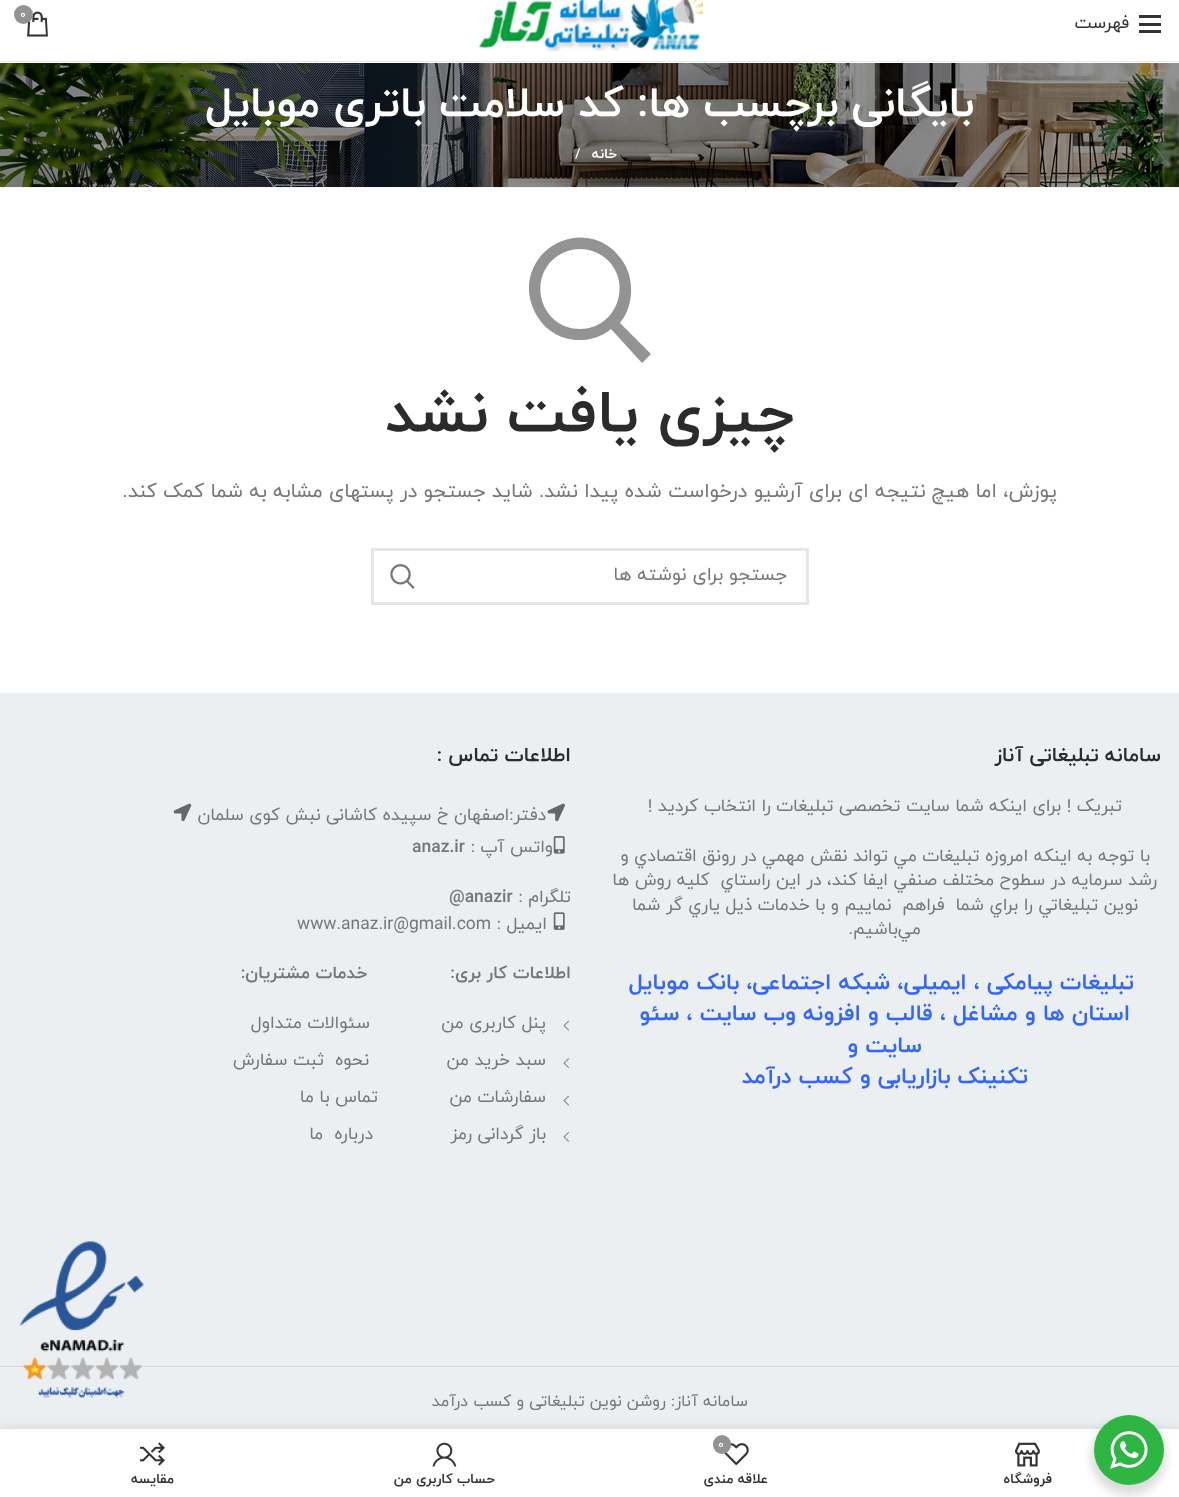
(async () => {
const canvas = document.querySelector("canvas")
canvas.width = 1179
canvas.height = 1497
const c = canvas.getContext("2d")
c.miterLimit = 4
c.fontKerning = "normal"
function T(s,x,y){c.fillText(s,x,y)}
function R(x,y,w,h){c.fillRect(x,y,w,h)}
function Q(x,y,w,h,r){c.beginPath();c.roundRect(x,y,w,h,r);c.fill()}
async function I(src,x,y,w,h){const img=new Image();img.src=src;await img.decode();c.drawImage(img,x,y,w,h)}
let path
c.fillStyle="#fff"
R(0,0,1179,1497)
c.fillStyle="#e8e8e8"
R(0,61,1179,1)
c.fillStyle="#333"
R(1139,23,22,3)
R(1139,15,22,3)
R(1139,30,22,3)
c.direction="rtl"
c.font="17.5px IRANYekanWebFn"
T("فهرست",1129,28)
await I("1.png",479,0,224,52)
await I("2.png",27,11,21,26)
c.fillStyle="#939393"
c.beginPath()
c.arc(23.5,14.5,9.5,0,7)
c.fill()
c.direction="ltr"
c.font="12px IRANYekanWebFn"
c.fillStyle="#fff"
T("0",20,18)
c.fillStyle="#f4f4f4"
R(0,187,1179,1)
await I("3.png",0,63,1179,124)
c.direction="rtl"
c.font="bold 42.5px IRANYekanWebFn"
c.fillStyle="#fff"
T("بایگانی برچسب ها: کد سلامت باتری موبایل",974,116)
c.letterSpacing="0.5px"
c.font="bold 13.75px IRANYekanWebFn"
T("خانه",617,158)
c.direction="ltr"
T("/",575,158)
c.fillStyle="#939393"
path = new Path2D("M620 323l31 31l-9 9l-31-34c-23 19-59 13-74-13c-5-9-8-18-8-27c0-43 50-67 83-40c9 8 16 18 18 30c3 15 0 32-10 44zm-40 6c38 0 54-49 24-72c-7-5-15-8-24-8c-9 0-17 3-24 8c-30 23-14 72 24 72z")
c.fill(path)
c.letterSpacing="0px"
c.direction="rtl"
c.font="bold 60px IRANYekanWebFn"
c.fillStyle="#2d2a2a"
T("چیزی یافت نشد",795,431)
c.font="20px IRANYekanWebFn"
c.fillStyle="#777"
T("پوزش، اما هیچ نتیجه ای برای آرشیو درخواست شده پیدا نشد. شاید جستجو در پستهای مشابه به شما کمک کند.",1057,497)
c.strokeStyle="#e6e6e6"
c.lineWidth=3
c.strokeRect(372.5,549.5,435,54)
c.font="18.75px IRANYekanWebFn"
T("جستجو برای نوشته ها",787,580)
await I("4.png",390,564,25,25)
c.fillStyle="#eceff1"
R(0,693,1179,736)
c.font="bold 20px IRANYekanWebFn"
c.fillStyle="#2d2a2a"
T("سامانه تبلیغاتی آناز",1161,761)
c.font="17.5px IRANYekanWebFn"
c.fillStyle="#777"
T("تبریک ! برای اینکه شما سایت تخصصی تبلیغات را انتخاب کردید !",1122,811)
T("با توجه به اينكه امروزه تبليغات مي تواند نقش مهمي در رونق اقتصادي و",1150,861)
T("رشد سرمايه در سطوح مختلف صنفي ايفا كند، در این راستاي  كليه روش ها",1157,885)
T("نوين تبليغاتي را براي شما  فراهم  نماييم و با خدمات ذيل ياري گر شما",1138,910)
T("مي‌باشيم.",921,934)
c.font="bold 22.5px IRANYekanWebFn"
c.fillStyle="#36f"
T("تبلیغات پیامکی ، ایمیلی، شبکه اجتماعی، بانک موبایل",1134,989)
T("استان ها و مشاغل ، قالب و افزونه وب سایت ، سئو",1130,1020)
T("سایت و",922,1052)
T("تکنینک بازاریابی و کسب درآمد",1028,1083)
c.font="bold 20px IRANYekanWebFn"
c.fillStyle="#2d2a2a"
T("اطلاعات تماس :",571,761)
await I("5.png",547,803,18,19)
c.font="17.5px IRANYekanWebFn"
c.fillStyle="#777"
T("دفتر:اصفهان خ سپیده کاشانی نبش کوی سلمان",546,820)
await I("6.png",173,803,19,19)
await I("7.png",553,836,12,18)
T("واتس آپ :",553,852)
c.direction="ltr"
c.font="bold 17.5px IRANYekanWebFn"
T("anaz.ir",412,852)
c.direction="rtl"
c.font="17.5px IRANYekanWebFn"
T("تلگرام :",571,902)
c.direction="ltr"
c.font="bold 17.5px IRANYekanWebFn"
T("@anazir",449,902)
await I("8.png",553,912,12,18)
c.direction="rtl"
c.font="17.5px IRANYekanWebFn"
T("ایمیل :",547,929)
c.direction="ltr"
T("www.anaz.ir@gmail.com",297,929)
c.direction="rtl"
c.font="bold 17.5px IRANYekanWebFn"
T("اطلاعات کار بری:               خدمات مشتریان:",571,978)
await I("9.png",563,1020,6,11)
c.font="17.5px IRANYekanWebFn"
T("پنل کاربری من",546,1028)
T("سئوالات متداول",370,1028)
await I("10.png",563,1058,6,10)
T("سبد خرید من",546,1065)
T("نحوه  ثبت سفارش",369,1065)
await I("9.png",563,1095,6,11)
T("سفارشات من",546,1102)
T("تماس با ما",378,1102)
await I("11.png",563,1132,6,10)
T("باز گردانی رمز",546,1139)
T("درباره  ما",373,1139)
c.fillStyle="#d7d9db"
R(0,1366,1179,1)
c.font="16.25px IRANYekanWebFn"
c.fillStyle="#777"
T("سامانه آناز: روشن نوین تبلیغاتی و کسب درآمد",748,1406)
await I("12.png",19,1241,125,157)
c.fillStyle="#0000001f"
c.filter="blur(5.5px)"
c.beginPath()
c.rect(0,1429,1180,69)
c.fill()
c.filter="none"
c.fillStyle="#fff"
R(0,1429,1179,68)
c.fillStyle="#00000024"
c.filter="blur(5px)"
c.beginPath()
c.roundRect(1091,1420,75,75,37.5)
c.fill()
c.filter="none"
c.fillStyle="#2db742"
c.beginPath()
c.arc(1129,1450,35,0,7)
c.fill()
await I("13.png",1110,1431,38,38)
await I("14.png",1015,1442,25,25)
c.font="bold 13.75px IRANYekanWebFn"
c.fillStyle="#333"
T("فروشگاه",1052,1483)
await I("15.png",724,1443,25,22)
c.fillStyle="#939393"
Q(713,1435,18,19,9)
c.direction="ltr"
c.font="12px IRANYekanWebFn"
c.fillStyle="#fff"
T("0",718,1448)
c.direction="rtl"
c.font="bold 13.75px IRANYekanWebFn"
c.fillStyle="#333"
T("علاقه مندی",768,1483)
await I("16.png",432,1442,25,25)
T("حساب کاربری من",495,1483)
await I("17.png",140,1442,25,24)
T("مقایسه",174,1483)
})()
